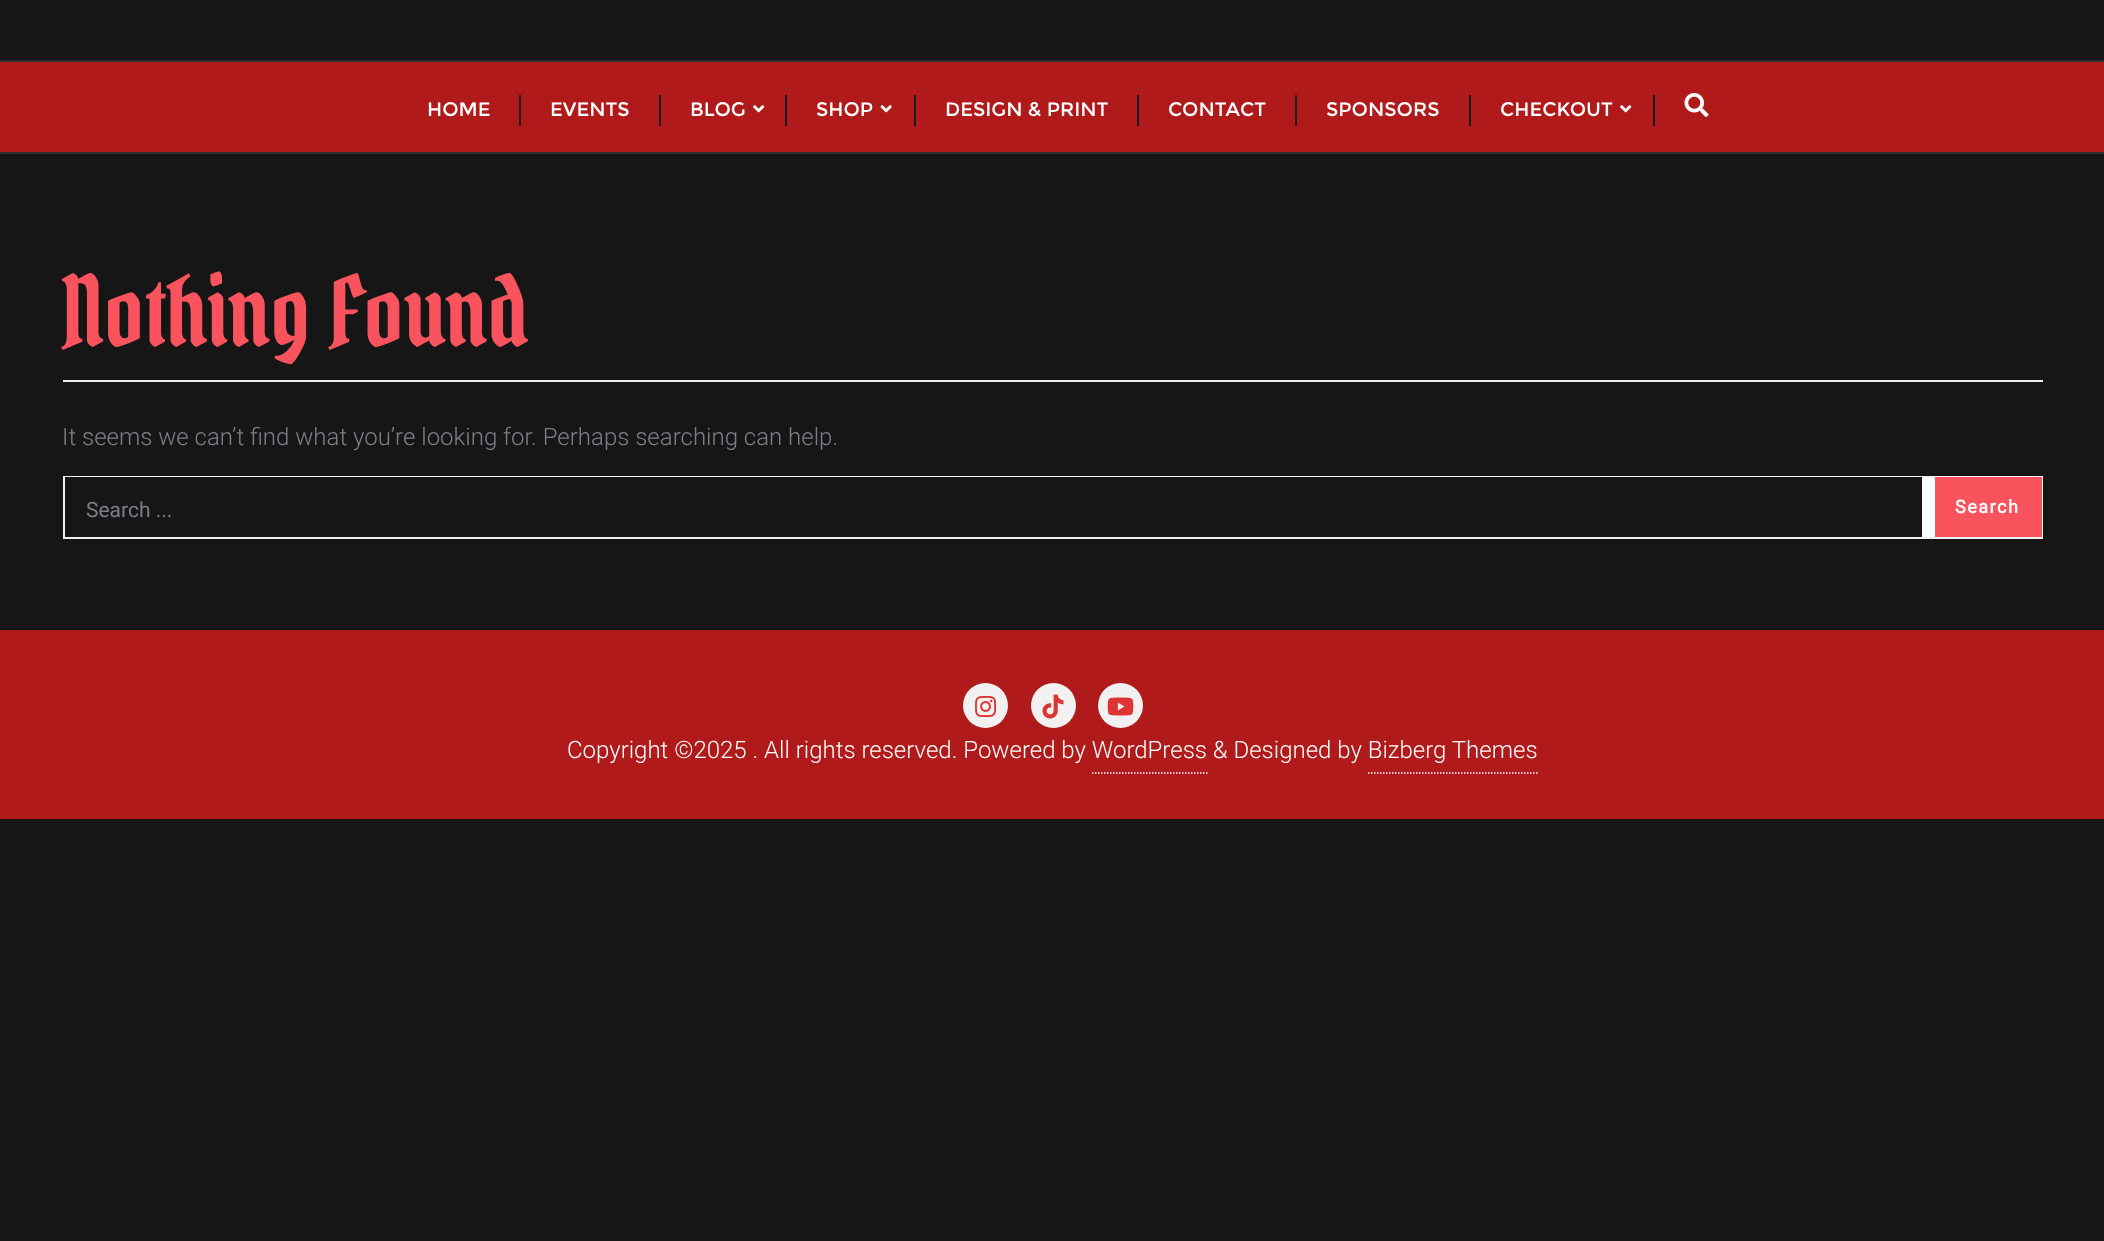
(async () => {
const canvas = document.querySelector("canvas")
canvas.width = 2104
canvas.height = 1241
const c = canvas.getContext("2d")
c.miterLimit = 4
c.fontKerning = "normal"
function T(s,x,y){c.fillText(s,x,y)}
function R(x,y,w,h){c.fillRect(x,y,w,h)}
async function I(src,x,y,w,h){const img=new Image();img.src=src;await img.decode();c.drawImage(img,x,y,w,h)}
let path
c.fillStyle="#161616"
R(0,0,2104,1241)
c.fillStyle="#2f2f2f"
R(0,152,2104,2)
R(0,60,2104,2)
c.fillStyle="#b11a1a"
R(0,62,2104,90)
c.font="19.5px Montserrat"
c.fillStyle="#fff"
T("HOME",427,116)
c.fillStyle="#181d20"
R(519,95,2,31)
c.fillStyle="#fff"
T("EVENTS",550,116)
c.fillStyle="#181d20"
R(659,95,2,31)
c.fillStyle="#fff"
T("BLOG",690,116)
await I("1.png",753,105,12,8)
c.fillStyle="#181d20"
R(785,95,2,31)
c.fillStyle="#fff"
T("SHOP",816,116)
await I("2.png",880,105,12,8)
c.fillStyle="#181d20"
R(914,95,2,31)
c.fillStyle="#fff"
T("DESIGN & PRINT",945,116)
c.fillStyle="#181d20"
R(1137,95,2,31)
c.fillStyle="#fff"
T("CONTACT",1168,116)
c.fillStyle="#181d20"
R(1295,95,2,31)
c.fillStyle="#fff"
T("SPONSORS",1326,116)
c.fillStyle="#181d20"
R(1469,95,2,31)
c.fillStyle="#fff"
T("CHECKOUT",1500,116)
await I("1.png",1620,105,12,8)
c.fillStyle="#181d20"
R(1653,95,2,31)
await I("3.png",1684,93,25,24)
c.fillStyle="#eee"
R(63,380,1980,2)
c.font="96px Pirata One"
c.fillStyle="#f9545e"
T("Nothing Found",62,347)
c.font="300 24px Roboto"
c.fillStyle="#7b8088"
T("It seems we can’t find what you’re looking for. Perhaps searching can help.",62,445)
c.fillStyle="#fff"
R(1922,478,13,59)
c.strokeStyle="#f1f1f1"
c.lineWidth=2
c.strokeRect(64,477,1978,61)
c.fillStyle="#161616"
R(65,477,1857,1)
c.font="21px Roboto"
c.fillStyle="#7b8088"
T("Search ...",86,517)
c.fillStyle="#f9545e"
R(1935,477,107,60)
c.letterSpacing="1.5px"
c.font="bold 18px Roboto"
c.fillStyle="#fff"
T("Search",1955,513)
c.fillStyle="#b11a1a"
R(0,630,2104,189)
c.fillStyle="#f1f1f1"
c.beginPath()
c.arc(985.5,705.5,22.5,0,7)
c.fill()
await I("4.png",975,696,22,21)
c.beginPath()
c.arc(1053.5,705.5,22.5,0,7)
c.fill()
await I("5.png",1042,694,22,25)
c.beginPath()
c.arc(1120.5,705.5,22.5,0,7)
c.fill()
await I("6.png",1107,697,27,19)
c.letterSpacing="0px"
c.font="300 24px Roboto"
c.fillStyle="#fff"
T("Copyright ©2025 . All rights reserved. Powered by WordPress & Designed by Bizberg Themes",567,758)
path = new Path2D("M1092 773h115.5")
c.strokeStyle="#fff"
c.lineWidth=1.5
c.setLineDash([1.5,1.5])
c.stroke(path)
path = new Path2D("M1368 773h169.5")
c.stroke(path)
})()
